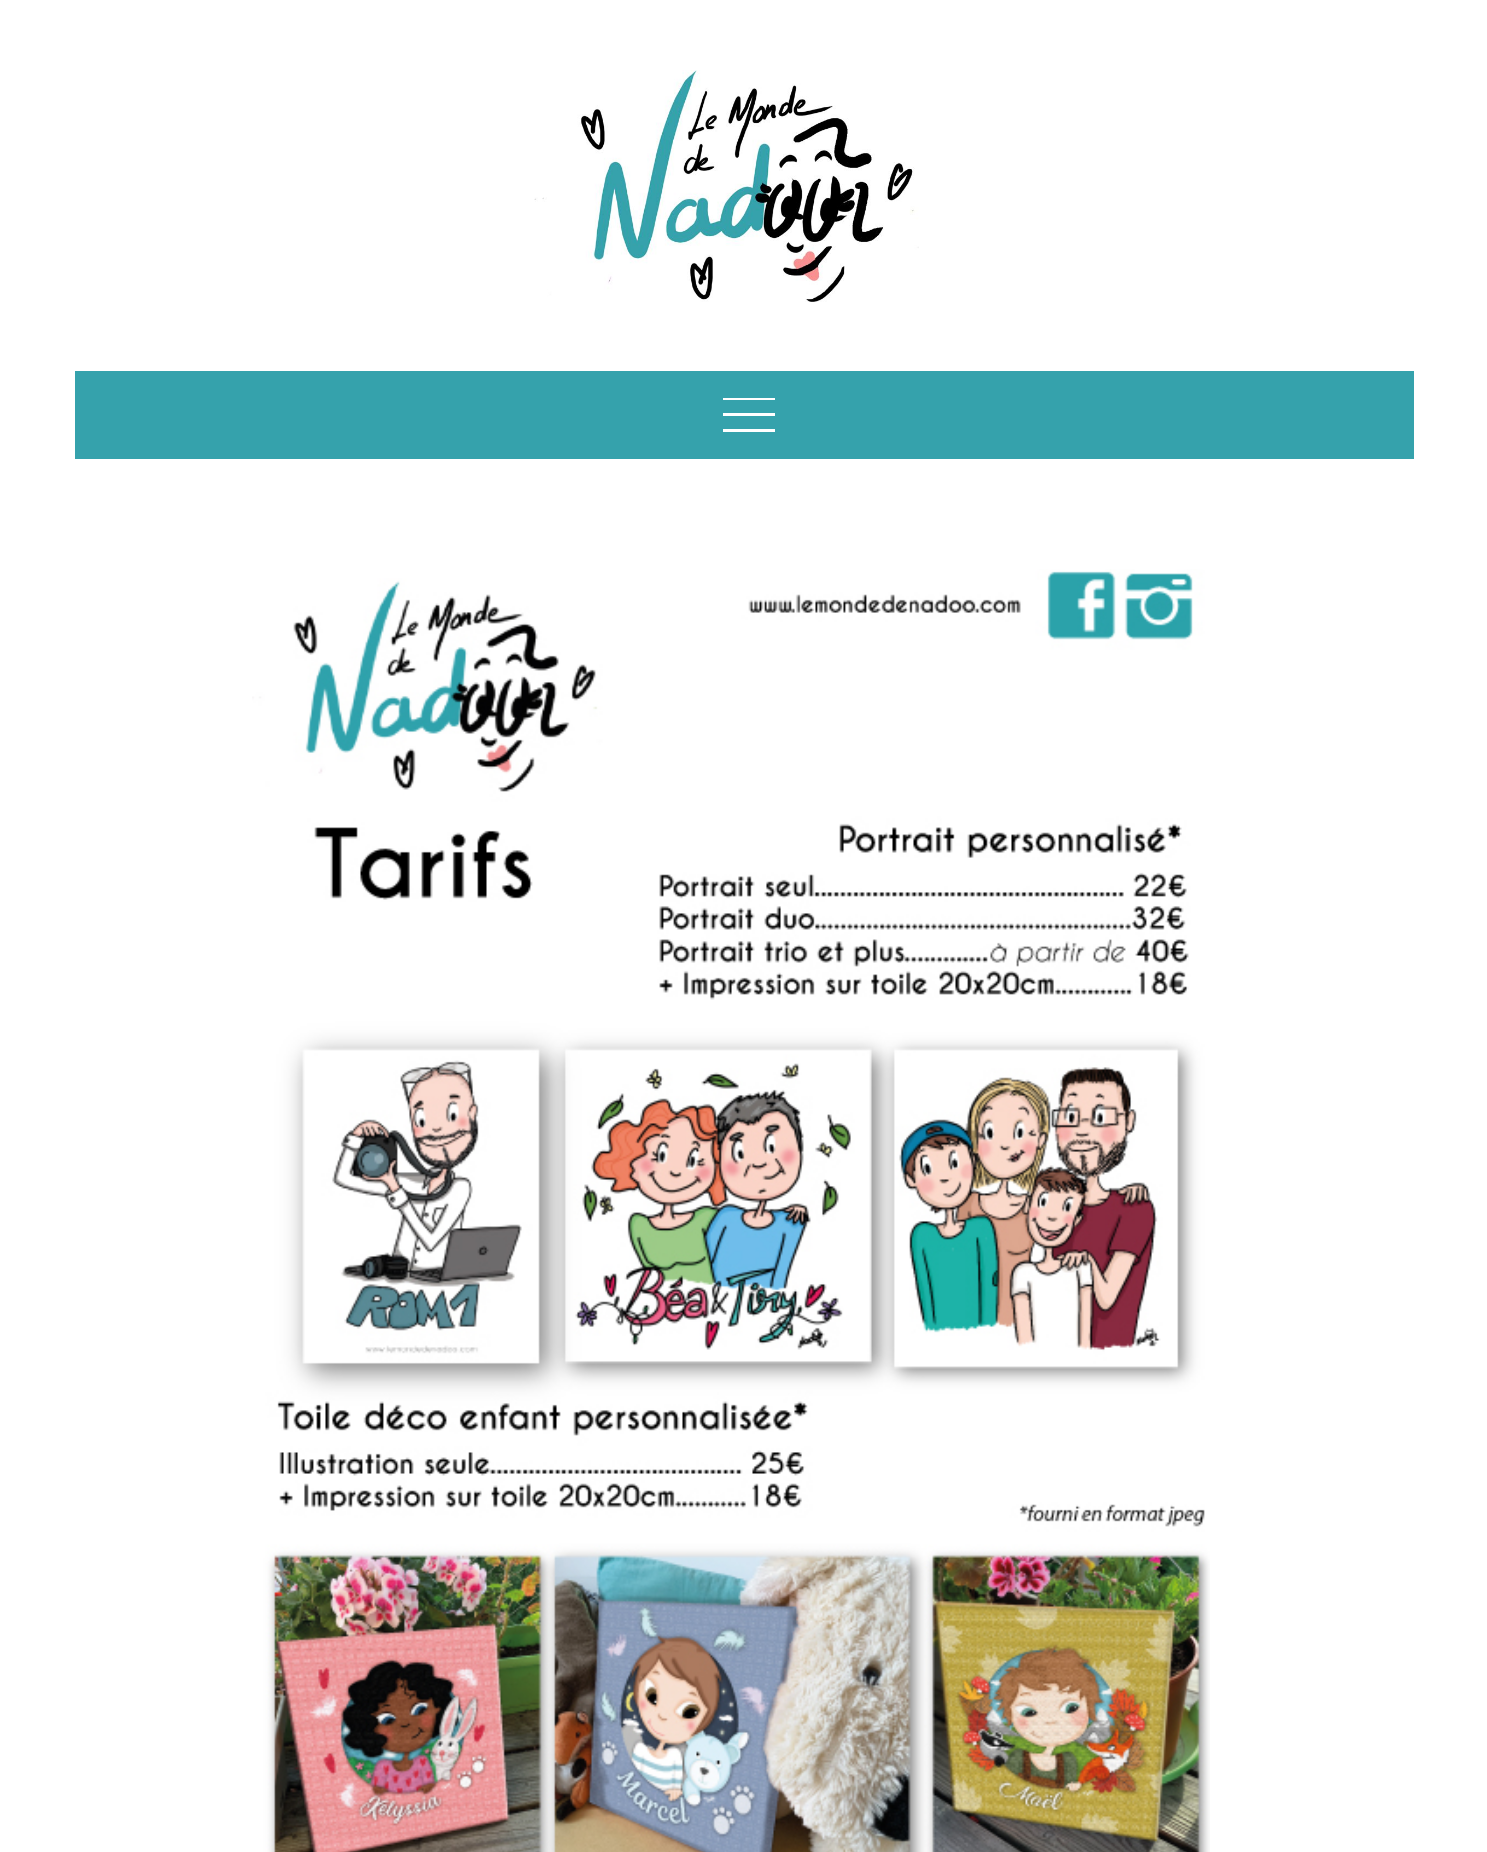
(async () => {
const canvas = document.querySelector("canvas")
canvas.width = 1487
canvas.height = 1852
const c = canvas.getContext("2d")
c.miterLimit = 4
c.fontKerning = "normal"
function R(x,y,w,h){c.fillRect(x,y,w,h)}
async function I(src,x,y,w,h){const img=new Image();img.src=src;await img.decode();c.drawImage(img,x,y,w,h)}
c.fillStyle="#fff"
R(0,0,1487,1852)
await I("1.png",534,70,385,232)
c.fillStyle="#35a2ac"
R(75,371,1339,88)
c.fillStyle="#fff"
R(723,398,52,2)
R(723,413,52,3)
R(723,429,52,3)
await I("2.png",252,569,958,1283)
})()
